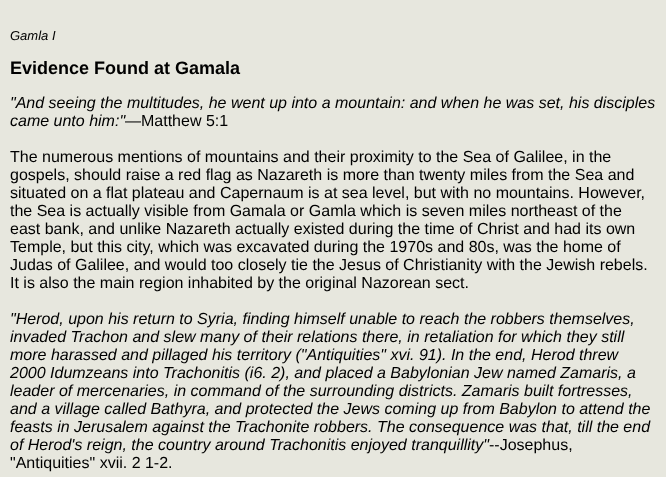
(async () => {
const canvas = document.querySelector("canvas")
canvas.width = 666
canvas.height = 477
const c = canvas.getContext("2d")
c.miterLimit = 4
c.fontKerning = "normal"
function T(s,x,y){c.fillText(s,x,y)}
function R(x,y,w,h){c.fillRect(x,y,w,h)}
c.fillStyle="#e7e7de"
R(0,0,666,477)
c.font="italic 13px Liberation Sans"
c.fillStyle="#000"
T("Gamla I",10,40)
c.font="bold 18px Liberation Sans"
T("Evidence Found at Gamala",10,74)
c.font="italic 16px Liberation Sans"
T("\"And seeing the multitudes, he went up into a mountain: and when he was set, his disciples",10,108)
T("came unto him:\"",10,126)
c.font="16px Liberation Sans"
T("—Matthew 5:1",125,126)
T("The numerous mentions of mountains and their proximity to the Sea of Galilee, in the",10,162)
T("gospels, should raise a red flag as Nazareth is more than twenty miles from the Sea and",10,180)
T("situated on a flat plateau and Capernaum is at sea level, but with no mountains. However,",10,198)
T("the Sea is actually visible from Gamala or Gamla which is seven miles northeast of the",10,216)
T("east bank, and unlike Nazareth actually existed during the time of Christ and had its own",10,234)
T("Temple, but this city, which was excavated during the 1970s and 80s, was the home of",10,252)
T("Judas of Galilee, and would too closely tie the Jesus of Christianity with the Jewish rebels.",10,270)
T("It is also the main region inhabited by the original Nazorean sect.",10,288)
c.font="italic 16px Liberation Sans"
T("\"Herod, upon his return to Syria, finding himself unable to reach the robbers themselves,",10,324)
T("invaded Trachon and slew many of their relations there, in retaliation for which they still",10,342)
T("more harassed and pillaged his territory (\"Antiquities\" xvi. 91). In the end, Herod threw",10,360)
T("2000 Idumzeans into Trachonitis (i6. 2), and placed a Babylonian Jew named Zamaris, a",10,378)
T("leader of mercenaries, in command of the surrounding districts. Zamaris built fortresses,",10,396)
T("and a village called Bathyra, and protected the Jews coming up from Babylon to attend the",10,414)
T("feasts in Jerusalem against the Trachonite robbers. The consequence was that, till the end",10,432)
T("of Herod's reign, the country around Trachonitis enjoyed tranquillity\"",10,450)
c.font="16px Liberation Sans"
T("--Josephus,",489,450)
T("\"Antiquities\" xvii. 2 1-2.",10,468)
})()
